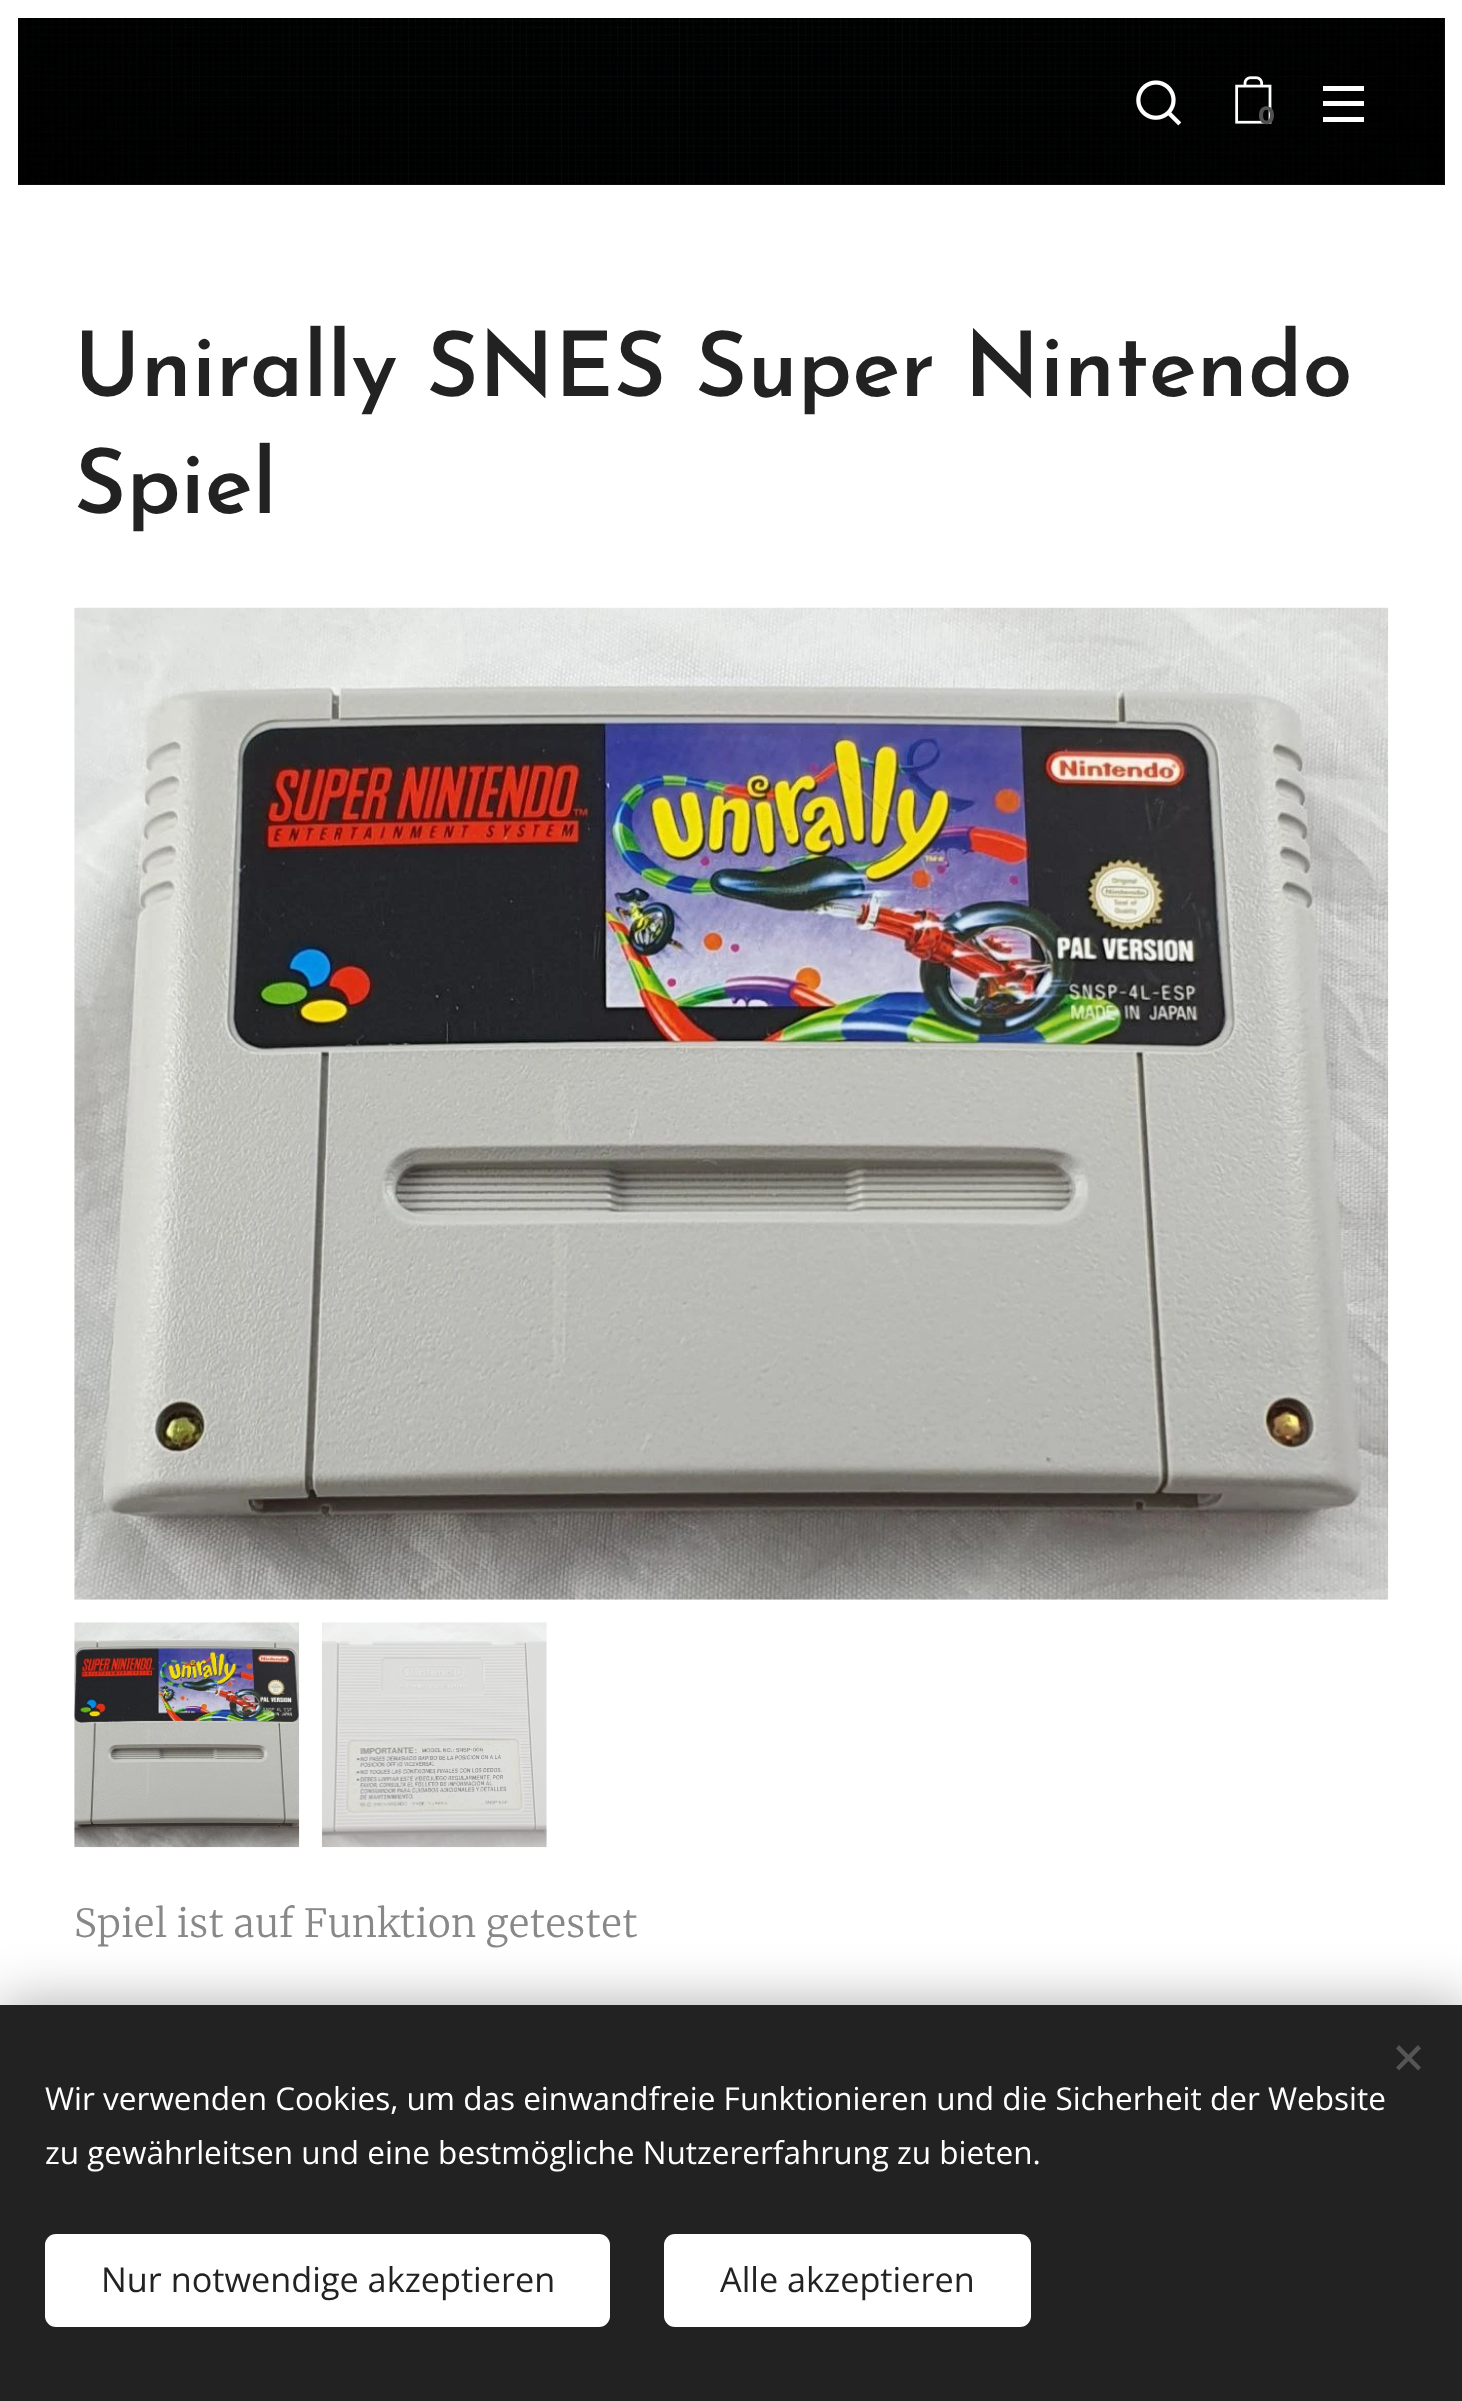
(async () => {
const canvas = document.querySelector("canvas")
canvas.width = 1462
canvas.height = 2401
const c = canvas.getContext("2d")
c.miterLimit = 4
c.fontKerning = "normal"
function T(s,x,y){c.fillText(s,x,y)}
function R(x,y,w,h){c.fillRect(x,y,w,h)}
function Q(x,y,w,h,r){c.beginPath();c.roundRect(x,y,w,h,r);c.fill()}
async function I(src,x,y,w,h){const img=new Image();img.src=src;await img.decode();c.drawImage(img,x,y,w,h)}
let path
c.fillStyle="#fff"
R(0,0,1462,2401)
c.fillStyle="#101010"
R(18,18,1427,167)
await I("1.png",18,18,1427,167)
await I("2.png",1136,80,46,46)
await I("3.png",1235,76,37,48)
c.font="bold 25px Montserrat"
c.fillStyle="#515251"
T("0",1258,124)
c.fillStyle="#fff"
R(1323,101,41,5)
R(1323,86,41,5)
R(1323,117,41,5)
c.font="600 90px Josefin Sans"
c.fillStyle="#222"
T("Unirally SNES Super Nintendo",74,396)
T("Spiel",74,513)
await I("4.png",74,607,1315,993)
await I("5.png",74,1622,226,226)
await I("6.png",321,1622,226,226)
c.font="300 38.75px Merriweather"
c.fillStyle="#888"
T("Spiel ist auf Funktion getestet",74,1937)
c.fillStyle="#00000054"
c.filter="blur(28px)"
c.beginPath()
c.rect(0,2005,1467,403)
c.fill()
c.filter="none"
c.fillStyle="#222"
R(0,2005,1462,396)
c.fillStyle="#555"
path = new Path2D("M1396 2067.5l22-22.5l3 3.5l-22 22z")
c.fill(path)
path = new Path2D("M1399 2045l22 22.5l-3 3l-22-22z")
c.fill(path)
c.font="31.5px Open Sans"
c.fillStyle="#fff"
T("Wir verwenden Cookies, um das einwandfreie Funktionieren und die Sicherheit der Website",45,2110)
T("zu gewährleitsen und eine bestmögliche Nutzererfahrung zu bieten.",45,2164)
Q(45,2234,565,93,11)
c.font="34.25px Open Sans"
c.fillStyle="#222"
T("Nur notwendige akzeptieren",101,2292)
c.fillStyle="#fff"
Q(664,2234,367,93,11)
c.fillStyle="#222"
T("Alle akzeptieren",720,2292)
})()
